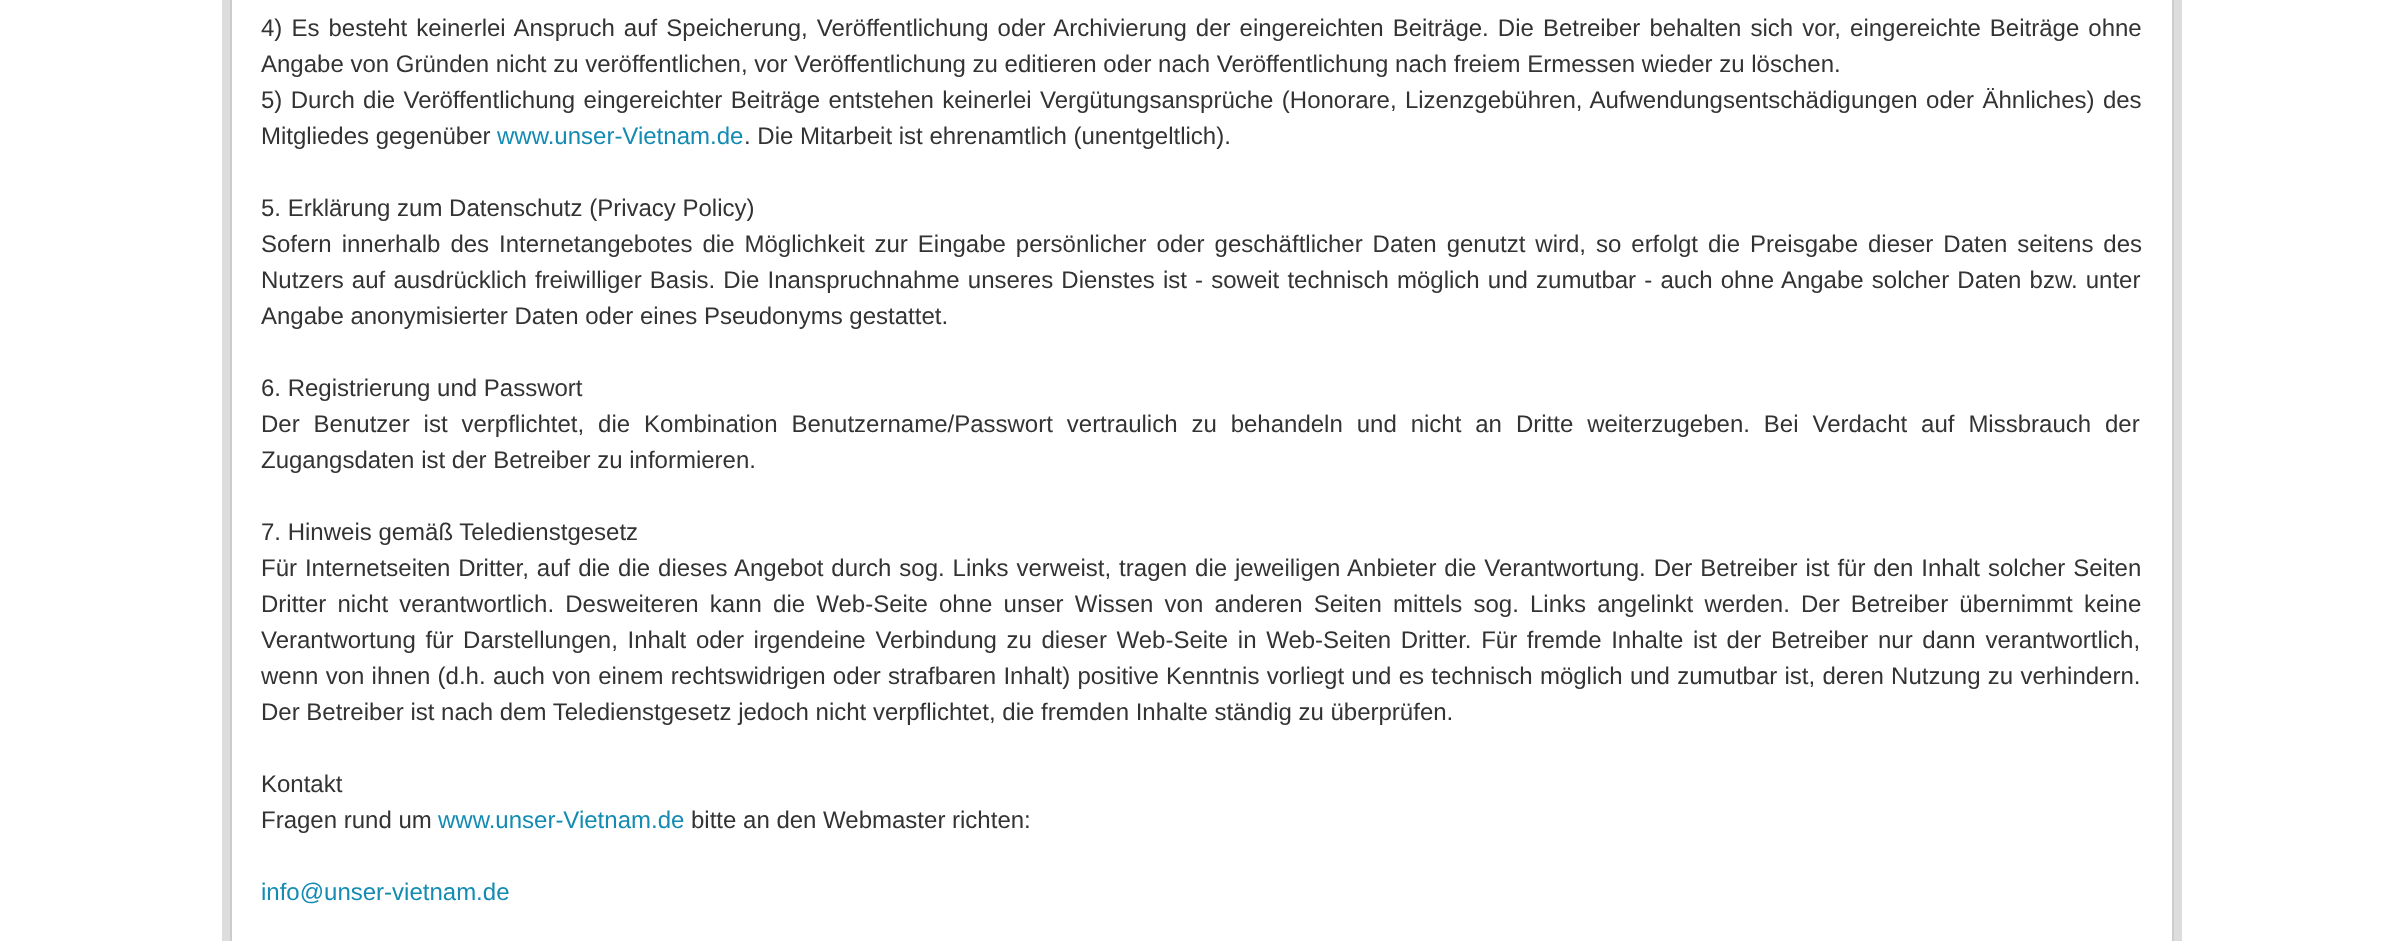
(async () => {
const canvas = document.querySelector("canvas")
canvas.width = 2402
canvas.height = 941
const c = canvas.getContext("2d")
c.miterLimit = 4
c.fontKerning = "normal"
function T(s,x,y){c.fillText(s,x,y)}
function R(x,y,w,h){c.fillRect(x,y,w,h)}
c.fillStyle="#fff"
R(0,0,2402,941)
c.fillStyle="#ddd"
R(222,0,1960,941)
c.fillStyle="#fff"
R(232,0,1940,941)
c.fillStyle="#ccc"
R(2172,0,2,941)
R(230,0,2,941)
c.wordSpacing="2.4px"
c.font="24px Liberation Sans"
c.fillStyle="#333"
T("4) Es besteht keinerlei Anspruch auf Speicherung, Veröffentlichung oder Archivierung der eingereichten Beiträge. Die Betreiber behalten sich vor, eingereichte Beiträge ohne",261,36)
c.wordSpacing="0px"
T("Angabe von Gründen nicht zu veröffentlichen, vor Veröffentlichung zu editieren oder nach Veröffentlichung nach freiem Ermessen wieder zu löschen.",261,72)
c.wordSpacing="1.7px"
T("5) Durch die Veröffentlichung eingereichter Beiträge entstehen keinerlei Vergütungsansprüche (Honorare, Lizenzgebühren, Aufwendungsentschädigungen oder Ähnliches) des",261,108)
c.wordSpacing="0px"
T("Mitgliedes gegenüber",261,144)
c.fillStyle="#138bb3"
T("www.unser-Vietnam.de",497,144)
c.fillStyle="#333"
T(". Die Mitarbeit ist ehrenamtlich (unentgeltlich).",744,144)
T("5. Erklärung zum Datenschutz (Privacy Policy)",261,216)
c.wordSpacing="3.3px"
T("Sofern innerhalb des Internetangebotes die Möglichkeit zur Eingabe persönlicher oder geschäftlicher Daten genutzt wird, so erfolgt die Preisgabe dieser Daten seitens des",261,252)
c.wordSpacing="1.5px"
T("Nutzers auf ausdrücklich freiwilliger Basis. Die Inanspruchnahme unseres Dienstes ist - soweit technisch möglich und zumutbar - auch ohne Angabe solcher Daten bzw. unter",261,288)
c.wordSpacing="0px"
T("Angabe anonymisierter Daten oder eines Pseudonyms gestattet.",261,324)
T("6. Registrierung und Passwort",261,396)
c.wordSpacing="7.25px"
T("Der Benutzer ist verpflichtet, die Kombination Benutzername/Passwort vertraulich zu behandeln und nicht an Dritte weiterzugeben. Bei Verdacht auf Missbrauch der",261,432)
c.wordSpacing="0px"
T("Zugangsdaten ist der Betreiber zu informieren.",261,468)
T("7. Hinweis gemäß Teledienstgesetz",261,540)
c.wordSpacing="1.25px"
T("Für Internetseiten Dritter, auf die die dieses Angebot durch sog. Links verweist, tragen die jeweiligen Anbieter die Verantwortung. Der Betreiber ist für den Inhalt solcher Seiten",261,576)
c.wordSpacing="4.5px"
T("Dritter nicht verantwortlich. Desweiteren kann die Web-Seite ohne unser Wissen von anderen Seiten mittels sog. Links angelinkt werden. Der Betreiber übernimmt keine",261,612)
c.wordSpacing="3px"
T("Verantwortung für Darstellungen, Inhalt oder irgendeine Verbindung zu dieser Web-Seite in Web-Seiten Dritter. Für fremde Inhalte ist der Betreiber nur dann verantwortlich,",261,648)
c.wordSpacing="0.6px"
T("wenn von ihnen (d.h. auch von einem rechtswidrigen oder strafbaren Inhalt) positive Kenntnis vorliegt und es technisch möglich und zumutbar ist, deren Nutzung zu verhindern.",261,684)
c.wordSpacing="0px"
T("Der Betreiber ist nach dem Teledienstgesetz jedoch nicht verpflichtet, die fremden Inhalte ständig zu überprüfen.",261,720)
T("Kontakt",261,792)
T("Fragen rund um",261,828)
c.fillStyle="#138bb3"
T("www.unser-Vietnam.de",438,828)
c.fillStyle="#333"
T("bitte an den Webmaster richten:",691,828)
c.fillStyle="#138bb3"
T("info@unser-vietnam.de",261,900)
})()
